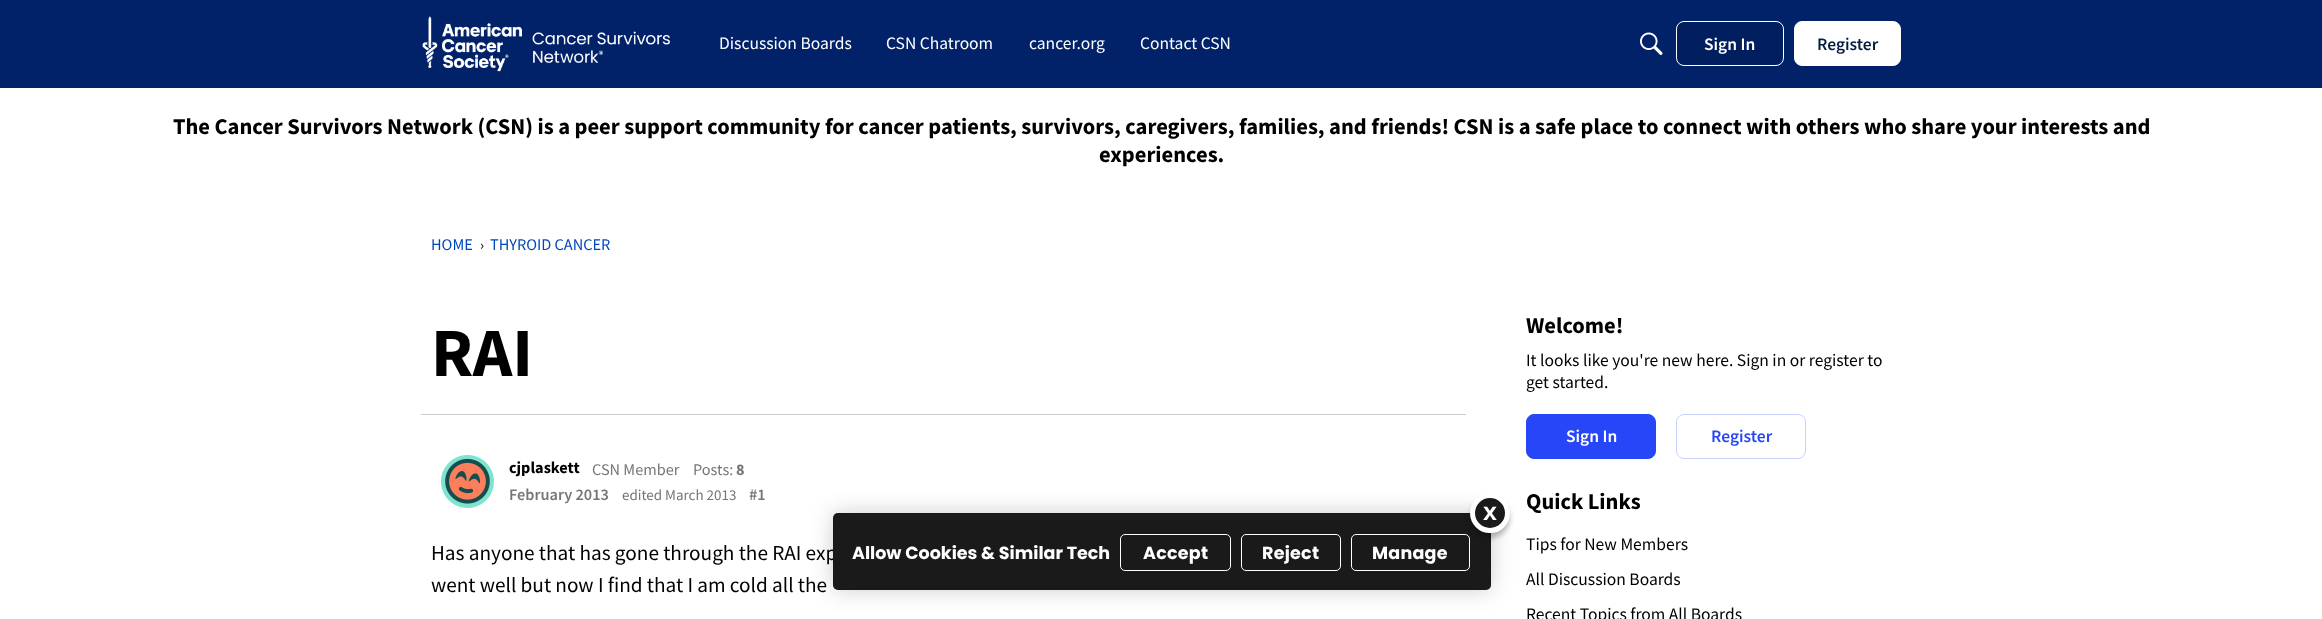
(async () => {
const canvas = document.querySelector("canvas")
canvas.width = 2322
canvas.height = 619
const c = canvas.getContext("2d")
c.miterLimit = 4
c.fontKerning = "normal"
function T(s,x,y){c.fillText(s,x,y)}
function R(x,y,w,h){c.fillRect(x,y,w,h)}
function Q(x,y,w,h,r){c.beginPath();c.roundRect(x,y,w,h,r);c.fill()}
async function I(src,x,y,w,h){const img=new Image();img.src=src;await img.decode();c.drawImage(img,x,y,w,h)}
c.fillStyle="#fff"
R(0,0,2322,619)
c.fillStyle="#012169"
R(0,0,2322,88)
await I("1.png",422,16,248,56)
c.font="17.5px Source Sans Pro"
c.fillStyle="#fff"
T("Discussion Boards",719,49)
T("CSN Chatroom",886,49)
T("cancer.org",1029,49)
T("Contact CSN",1140,49)
await I("2.png",1640,32,23,23)
c.fillStyle="#011e5f"
c.beginPath()
c.roundRect(1676.5,21.5,107,44,7.5)
c.fill()
c.strokeStyle="#fff"
c.stroke()
c.font="600 17.5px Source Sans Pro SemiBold"
c.fillStyle="#fff"
T("Sign In",1704,50)
c.beginPath()
c.roundRect(1794.5,21.5,106,44,7.5)
c.fill()
c.stroke()
c.fillStyle="#041e42"
T("Register",1817,50)
c.font="bold 22.5px Source Sans Pro"
c.fillStyle="#000"
T("The Cancer Survivors Network (CSN) is a peer support community for cancer patients, survivors, caregivers, families, and friends! CSN is a safe place to connect with others who share your interests and",173,134)
T("experiences.",1099,162)
c.font="16.25px Source Sans Pro"
c.fillStyle="#0047bb"
T("HOME",431,250)
c.font="15px Source Sans Pro"
c.fillStyle="#000"
T("›",480,250)
c.font="16.25px Source Sans Pro"
c.fillStyle="#0047bb"
T("THYROID CANCER",490,250)
c.font="bold 69px Source Sans Pro"
c.fillStyle="#000"
T("RAI",431,376)
c.fillStyle="#ccc"
R(421,414,1045,1)
await I("3.png",441,455,53,53)
c.font="bold 16.25px Source Sans Pro"
c.fillStyle="#000"
T("cjplaskett",509,473)
c.font="16.25px Source Sans Pro"
c.fillStyle="#767676"
T("CSN Member",592,475)
T("Posts:",693,475)
c.font="bold 16.25px Source Sans Pro"
T("8",736,475)
c.font="600 16.25px Source Sans Pro SemiBold"
T("February 2013",509,500)
c.font="15px Source Sans Pro"
T("edited March 2013",622,500)
c.font="600 16.25px Source Sans Pro SemiBold"
T("#1",749,500)
c.font="21.25px Source Sans Pro"
c.fillStyle="#000"
T("Has anyone that has gone through the RAI exp",431,560)
T("went well but now I find that I am cold all the",431,592)
c.font="bold 22.5px Source Sans Pro"
T("Welcome!",1526,333)
c.font="17.5px Source Sans Pro"
T("It looks like you're new here. Sign in or register to",1526,366)
T("get started.",1526,388)
c.fillStyle="#2746f8"
c.beginPath()
c.roundRect(1526.5,414.5,129,44,7.5)
c.fill()
c.strokeStyle="#2746f8"
c.stroke()
c.font="600 17.5px Source Sans Pro SemiBold"
c.fillStyle="#fff"
T("Sign In",1566,442)
c.beginPath()
c.roundRect(1676.5,414.5,129,44,7.5)
c.strokeStyle="#cbd3fd"
c.stroke()
c.fillStyle="#2746f8"
T("Register",1711,442)
c.font="bold 22.5px Source Sans Pro"
c.fillStyle="#000"
T("Quick Links",1526,509)
c.font="17.5px Source Sans Pro"
T("Tips for New Members",1526,550)
T("All Discussion Boards",1526,585)
T("Recent Topics from All Boards",1526,620)
c.fillStyle="#00000033"
c.filter="blur(11px)"
c.beginPath()
c.roundRect(833,513,658,77,5)
c.fill()
c.filter="none"
c.fillStyle="#1a1a1a"
Q(833,513,658,77,5)
c.beginPath()
c.roundRect(833.5,513.5,657,76,4.5)
c.strokeStyle="#1a1a1a33"
c.stroke()
c.beginPath()
c.roundRect(1351.5,534.5,118,36,4.5)
c.strokeStyle="#fff"
c.stroke()
c.fillStyle="#00000040"
c.filter="blur(2.5px)"
c.beginPath()
c.roundRect(1470,498,40,40,20)
c.fill()
c.filter="none"
c.fillStyle="#1a1a1a"
c.beginPath()
c.arc(1490,513,17.5,0,7)
c.fill()
c.lineWidth=5
c.stroke()
c.letterSpacing="0.25px"
c.font="bold 25px Liberation Sans"
c.fillStyle="#fff"
T("x",1483,520)
c.letterSpacing="0px"
c.font="bold 17.5px Poppins"
T("Allow Cookies & Similar Tech",852,559)
c.beginPath()
c.roundRect(1120.5,534.5,110,36,4.5)
c.lineWidth=1
c.stroke()
c.letterSpacing="0.25px"
T("Accept",1143,559)
c.beginPath()
c.roundRect(1241.5,534.5,99,36,4.5)
c.stroke()
T("Reject",1262,559)
T("Manage",1372,559)
})()
